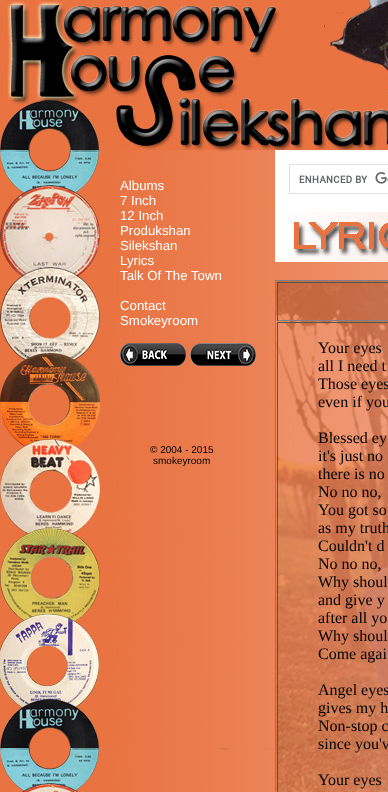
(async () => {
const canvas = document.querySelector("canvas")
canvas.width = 388
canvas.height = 792
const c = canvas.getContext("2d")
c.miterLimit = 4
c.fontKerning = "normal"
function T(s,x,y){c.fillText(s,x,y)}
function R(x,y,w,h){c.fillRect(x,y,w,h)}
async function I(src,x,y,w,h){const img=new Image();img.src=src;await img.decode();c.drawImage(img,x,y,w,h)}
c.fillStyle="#fff"
R(0,0,388,792)
await I("1.png",0,0,388,150)
await I("2.png",0,150,100,642)
await I("3.png",100,150,175,642)
c.font="13.25px Liberation Sans"
T("Albums",120,190)
T("7 Inch",120,205)
T("12 Inch",120,220)
T("Produkshan",120,235)
T("Silekshan",120,250)
T("Lyrics",120,265)
T("Talk Of The Town",120,280)
T("Contact",120,310)
T("Smokeyroom",120,325)
await I("4.png",120,343,66,23)
await I("5.png",190,343,66,23)
c.font="10px Liberation Sans"
c.fillStyle="#000"
T("© 2004 - 2015",150,453)
T("smokeyroom",153,464)
await I("6.png",275,262,113,18)
c.strokeStyle="#dfe1e5"
c.strokeRect(289.5,164.5,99,29)
await I("7.png",299,172,89,12)
await I("8.png",275,212,113,50)
await I("9.png",276,281,112,511)
c.fillStyle="#808080"
R(275,280,113,1)
R(275,280,1,512)
c.fillStyle="#555"
R(277,282,111,1)
c.fillStyle="#808080"
R(277,320,111,1)
c.fillStyle="#555"
R(277,282,1,39)
R(277,322,111,1)
R(277,322,1,470)
c.font="16px Liberation Serif"
c.fillStyle="#000"
T("Your eyes",318,353)
T("all I need t",318,371)
T("Those eyes",318,389)
T("even if you",318,407)
T("Blessed ey",318,443)
T("it's just no",318,461)
T("there is no",318,479)
T("No no no,",318,497)
T("You got so",318,515)
T("as my truth",318,533)
T("Couldn't d",318,551)
T("No no no,",318,569)
T("Why shoul",318,587)
T("and give y",318,605)
T("after all yo",318,623)
T("Why shoul",318,641)
T("Come agai",318,659)
T("Angel eyes",318,695)
T("gives my h",318,713)
T("Non-stop c",318,731)
T("since you'v",318,749)
T("Your eyes",318,785)
})()
